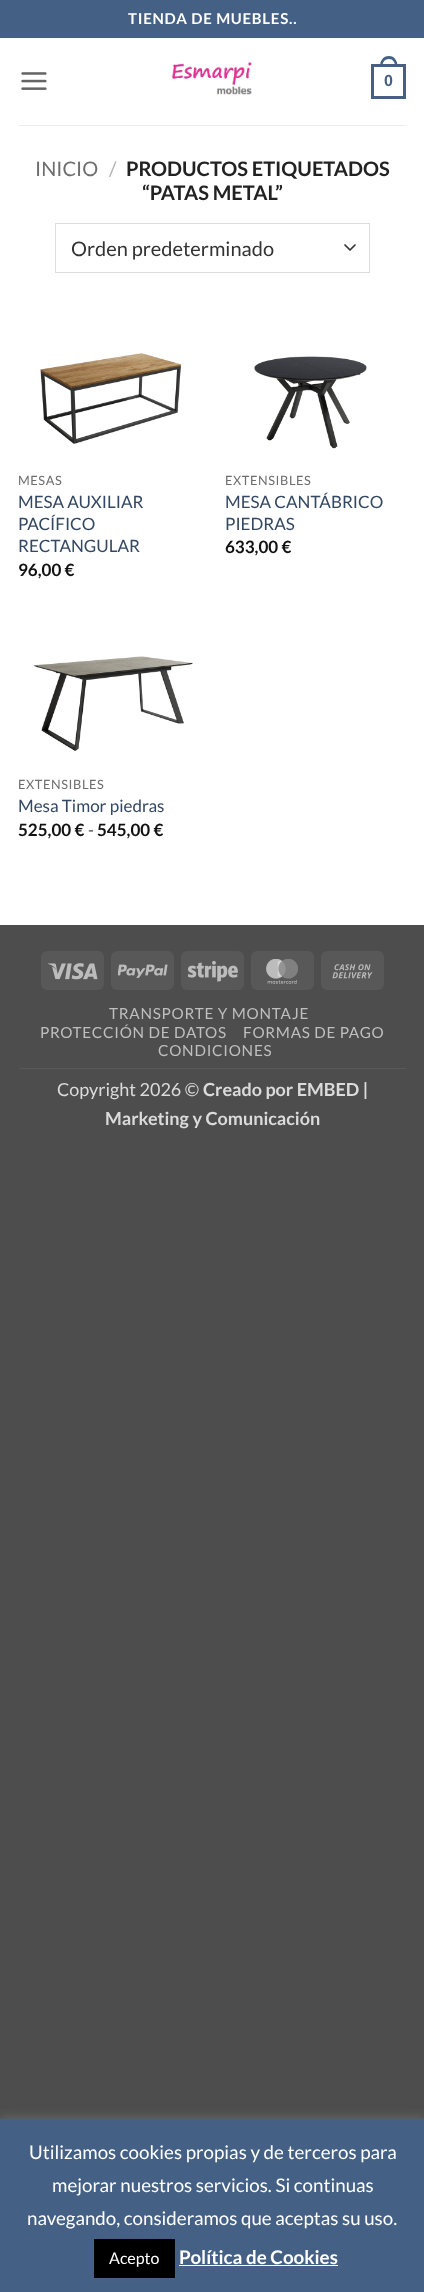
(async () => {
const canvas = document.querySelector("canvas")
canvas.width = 424
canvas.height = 2292
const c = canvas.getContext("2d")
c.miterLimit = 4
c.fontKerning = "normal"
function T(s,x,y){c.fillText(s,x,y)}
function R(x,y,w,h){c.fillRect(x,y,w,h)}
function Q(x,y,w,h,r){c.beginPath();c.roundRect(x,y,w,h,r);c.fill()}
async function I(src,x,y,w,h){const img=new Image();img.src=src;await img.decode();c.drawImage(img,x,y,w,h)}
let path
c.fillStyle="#4d4d4d"
R(0,0,424,2292)
c.fillStyle="#fff"
R(0,38,424,887)
c.fillStyle="#446084"
R(0,0,424,38)
c.letterSpacing="0.75px"
c.font="bold 15px Lato"
c.fillStyle="#fff"
T("TIENDA DE MUEBLES..",128,24)
await I("1.png",21,72,26,18)
await I("2.png",171,61,81,34)
c.strokeStyle="#446084"
c.lineWidth=3
c.strokeRect(372.5,65.5,32,32)
c.fillStyle="#446084"
path = new Path2D("M389 56c5.5 0 8.5 5 8.5 10h-17.5c0-5 3-10 9-10zm0 3c4 0 6 3.5 6 7h-12.5c0-3.5 2-7 6.5-7z")
c.fill(path,"evenodd")
c.letterSpacing="0px"
c.font="bold 16px Liberation Sans"
T("0",384,86)
c.fillStyle="#ededed"
R(19,125,387,1)
c.font="20px Lato"
c.fillStyle="#6e6e6e"
T("INICIO",35,176)
c.fillStyle="#b2b2b2"
T("/",109,176)
c.font="bold 20px Lato"
c.fillStyle="#222"
T("PRODUCTOS ETIQUETADOS",126,176)
T("“PATAS METAL”",142,200)
path = new Path2D("M345 245l5 5l5-5")
c.strokeStyle="#333"
c.lineWidth=1.7
c.lineCap="round"
c.lineJoin="round"
c.stroke(path)
c.strokeStyle="#ddd"
c.lineWidth=1
c.lineJoin="miter"
c.strokeRect(55.5,223.5,314,49)
c.font="20px Lato"
c.fillStyle="#333"
T("Orden predeterminado",71,256)
await I("3.png",40,353,142,91)
c.letterSpacing="0.6px"
c.font="12.75px Lato"
c.fillStyle="#6e6e6e"
T("MESAS",18,485)
c.letterSpacing="0px"
c.font="17px Lato"
c.fillStyle="#334862"
T("MESA AUXILIAR",18,508)
T("PACÍFICO",18,530)
T("RECTANGULAR",18,552)
c.font="bold 17px Lato"
c.fillStyle="#111"
T("96,00 €",18,576)
await I("4.png",254,356,113,93)
c.letterSpacing="0.6px"
c.font="12.75px Lato"
c.fillStyle="#6e6e6e"
T("EXTENSIBLES",225,485)
c.letterSpacing="0px"
c.font="17px Lato"
c.fillStyle="#334862"
T("MESA CANTÁBRICO",225,508)
T("PIEDRAS",225,530)
c.font="bold 17px Lato"
c.fillStyle="#111"
T("633,00 €",225,553)
await I("5.png",34,656,159,95)
c.letterSpacing="0.6px"
c.font="12.75px Lato"
c.fillStyle="#6e6e6e"
T("EXTENSIBLES",18,789)
c.letterSpacing="0px"
c.font="17px Lato"
c.fillStyle="#334862"
T("Mesa Timor piedras",18,812)
c.font="bold 17px Lato"
c.fillStyle="#111"
T("525,00 €",18,836)
c.font="17px Lato"
c.fillStyle="#4a4a4a"
T("-",88,836)
c.font="bold 17px Lato"
c.fillStyle="#111"
T("545,00 €",97,836)
c.fillStyle="#585858"
Q(41,951,63,39,6)
await I("6.png",48,963,50,17)
Q(111,951,63,39,6)
await I("7.png",118,964,50,14)
Q(181,951,63,39,6)
await I("8.png",188,960,50,22)
Q(251,951,63,39,6)
await I("9.png",266,959,32,25)
Q(321,951,63,39,6)
await I("10.png",332,964,41,15)
R(19,1068,387,1)
c.letterSpacing="0.75px"
c.font="15.25px Lato"
c.fillStyle="#bfbfbf"
T("TRANSPORTE Y MONTAJE",109,1019)
T("PROTECCIÓN DE DATOS",40,1038)
T("FORMAS DE PAGO",243,1038)
T("CONDICIONES",158,1056)
c.letterSpacing="0px"
c.font="18px Lato"
c.fillStyle="#dbdbdb"
T("Copyright 2026 ©",57,1096)
c.font="bold 18px Lato"
T("Creado por EMBED |",203,1096)
T("Marketing y Comunicación",105,1125)
c.fillStyle="#acabab4d"
c.filter="blur(6px)"
c.beginPath()
c.rect(0,2118,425,173)
c.fill()
c.filter="none"
c.fillStyle="#446084"
R(0,2119,424,173)
c.font="18.75px Lato"
c.fillStyle="#fff"
T("Utilizamos cookies propias y de terceros para",29,2159)
T("mejorar nuestros servicios. Si continuas",52,2192)
T("navegando, consideramos que aceptas su uso.",27,2225)
c.fillStyle="#000"
R(94,2239,81,39)
c.font="16px Lato"
c.fillStyle="#fff"
T("Acepto",109,2264)
c.font="bold 18.75px Lato"
T("Política de Cookies",179,2264)
R(179,2265,159,1)
})()
